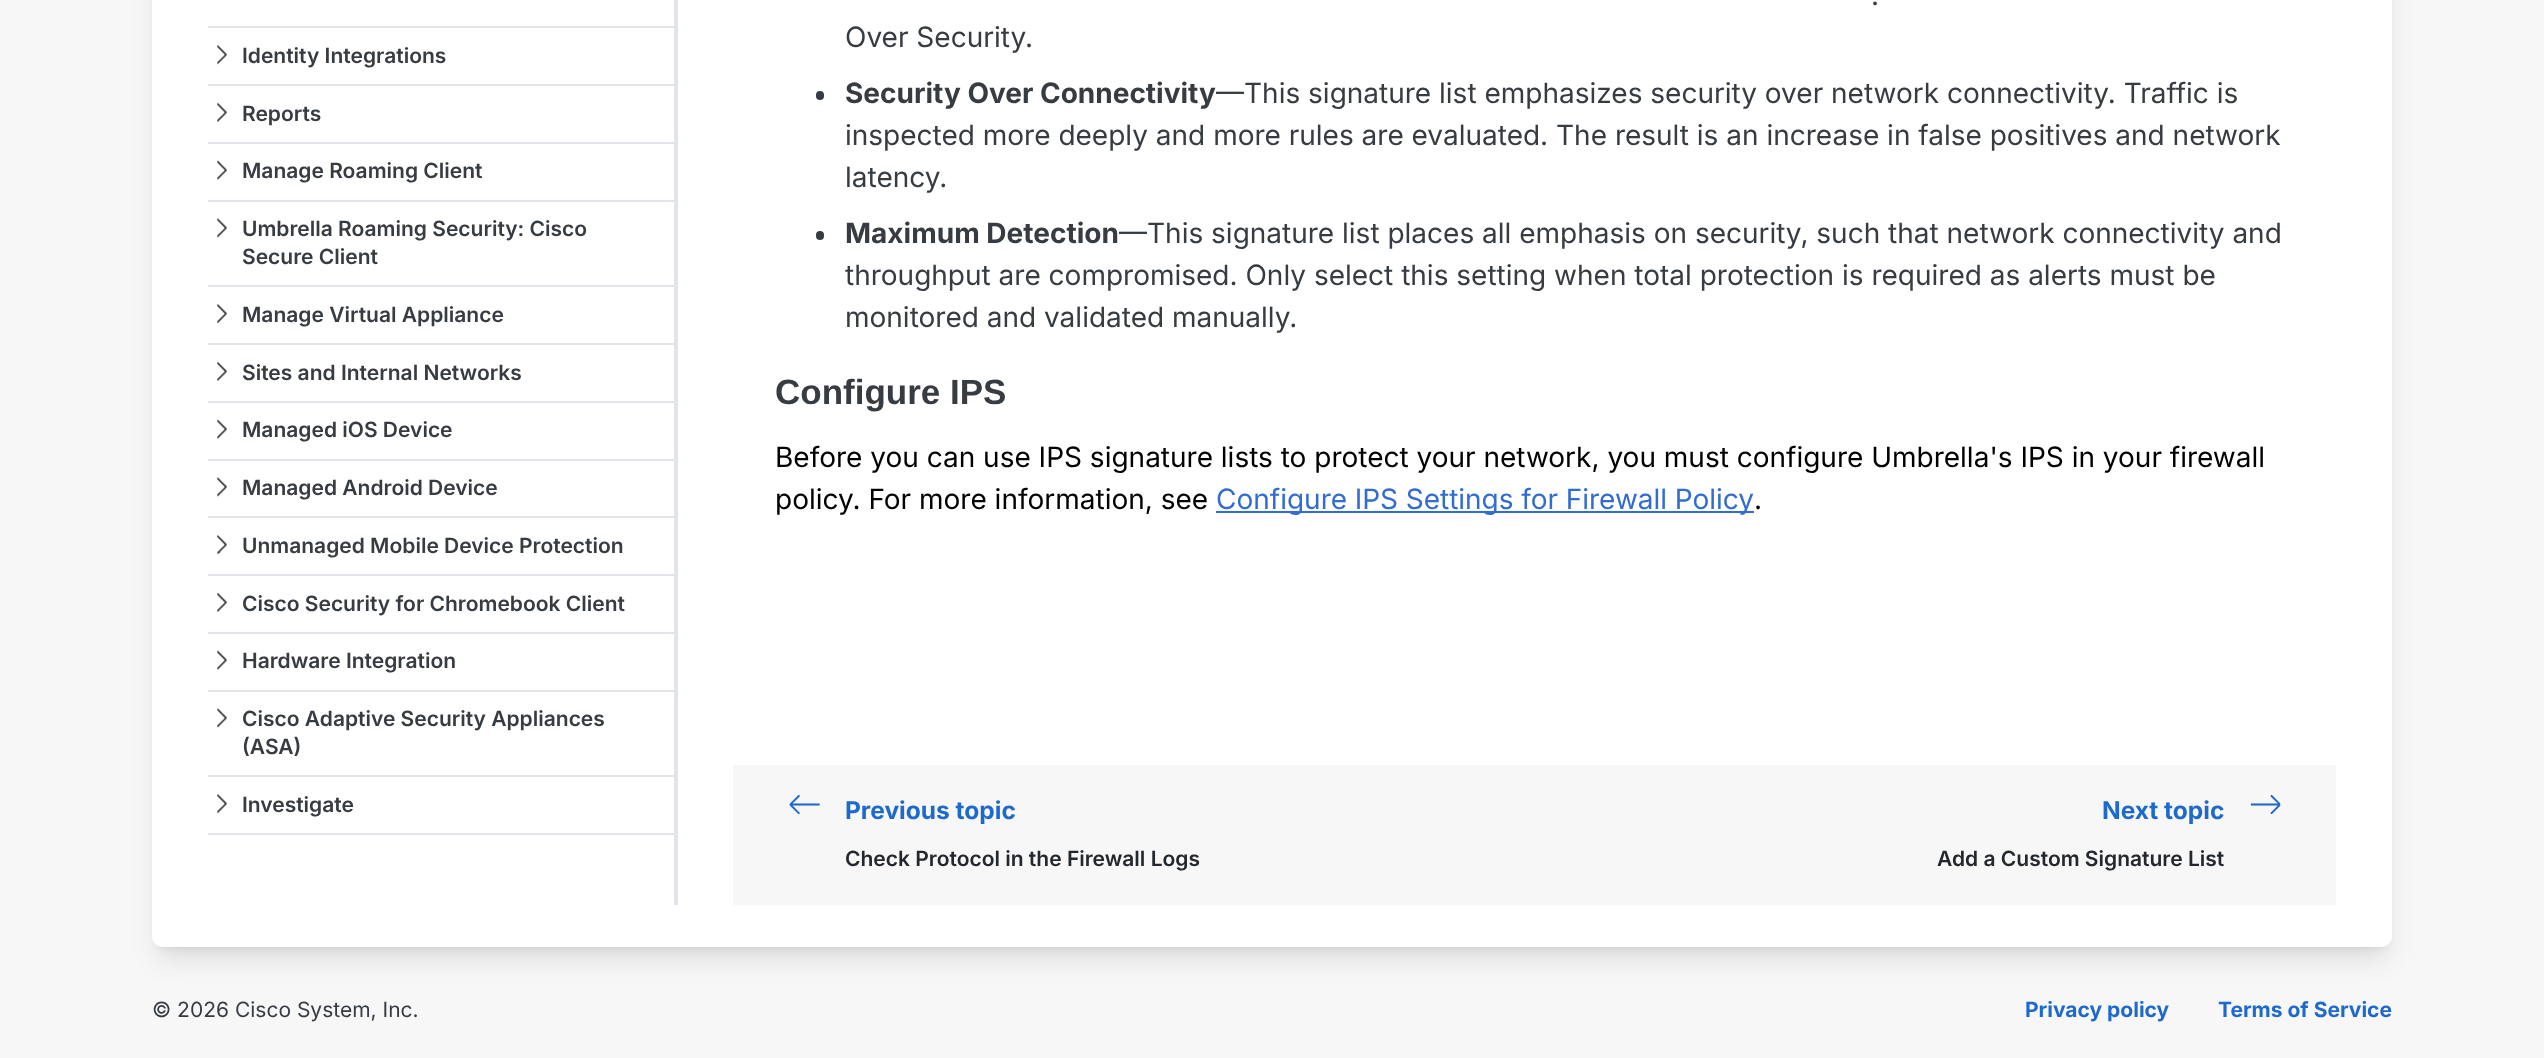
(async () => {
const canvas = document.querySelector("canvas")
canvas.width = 2544
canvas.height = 1058
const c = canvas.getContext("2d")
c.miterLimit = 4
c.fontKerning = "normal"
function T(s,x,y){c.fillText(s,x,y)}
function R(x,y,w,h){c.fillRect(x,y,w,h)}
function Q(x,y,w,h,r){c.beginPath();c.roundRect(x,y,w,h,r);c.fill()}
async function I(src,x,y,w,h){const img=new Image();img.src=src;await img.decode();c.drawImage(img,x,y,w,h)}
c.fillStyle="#f7f7f7"
R(0,0,2544,1058)
c.fillStyle="#0000001a"
c.filter="blur(5px)"
c.beginPath()
c.roundRect(159,-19,2226,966,4)
c.fill()
c.filter="none"
c.filter="blur(13px)"
c.beginPath()
c.roundRect(158,-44,2229,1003,5)
c.fill()
c.filter="none"
c.fillStyle="#fff"
Q(152,-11,2240,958,11)
c.fillStyle="#e1e4e8"
R(674,0,4,905)
R(208,26,466,2)
R(208,84,466,2)
await I("1.png",217,45,10,20)
c.font="600 21px Inter"
c.fillStyle="#373c42"
T("Identity Integrations",242,63)
c.fillStyle="#e1e4e8"
R(208,142,466,2)
await I("2.png",217,102,10,20)
c.fillStyle="#373c42"
T("Reports",242,121)
c.fillStyle="#e1e4e8"
R(208,200,466,2)
await I("3.png",217,160,10,20)
c.fillStyle="#373c42"
T("Manage Roaming Client",242,178)
c.fillStyle="#e1e4e8"
R(208,285,466,2)
await I("4.png",217,218,10,20)
c.fillStyle="#373c42"
T("Umbrella Roaming Security: Cisco",242,236)
T("Secure Client",242,264)
c.fillStyle="#e1e4e8"
R(208,343,466,2)
await I("1.png",217,304,10,20)
c.fillStyle="#373c42"
T("Manage Virtual Appliance",242,322)
c.fillStyle="#e1e4e8"
R(208,401,466,2)
await I("2.png",217,361,10,20)
c.fillStyle="#373c42"
T("Sites and Internal Networks",242,380)
c.fillStyle="#e1e4e8"
R(208,459,466,2)
await I("3.png",217,419,10,20)
c.fillStyle="#373c42"
T("Managed iOS Device",242,437)
c.fillStyle="#e1e4e8"
R(208,516,466,2)
await I("4.png",217,477,10,20)
c.fillStyle="#373c42"
T("Managed Android Device",242,495)
c.fillStyle="#e1e4e8"
R(208,574,466,2)
await I("5.png",217,535,10,20)
c.fillStyle="#373c42"
T("Unmanaged Mobile Device Protection",242,553)
c.fillStyle="#e1e4e8"
R(208,632,466,2)
await I("2.png",217,592,10,20)
c.fillStyle="#373c42"
T("Cisco Security for Chromebook Client",242,611)
c.fillStyle="#e1e4e8"
R(208,690,466,2)
await I("3.png",217,650,10,20)
c.fillStyle="#373c42"
T("Hardware Integration",242,668)
c.fillStyle="#e1e4e8"
R(208,775,466,2)
await I("4.png",217,708,10,20)
c.fillStyle="#373c42"
T("Cisco Adaptive Security Appliances",242,726)
T("(ASA)",242,754)
c.fillStyle="#e1e4e8"
R(208,833,466,2)
await I("1.png",217,794,10,20)
c.fillStyle="#373c42"
T("Investigate",242,812)
c.font="28px Inter"
T(".",1871,5)
T("Over Security.",845,47)
Q(816,91,8,9,4)
c.font="bold 28px Inter"
T("Security Over Connectivity",845,103)
c.font="28px Inter"
T("—This signature list emphasizes security over network connectivity. Traffic is",1216,103)
T("inspected more deeply and more rules are evaluated. The result is an increase in false positives and network",845,145)
T("latency.",845,187)
Q(816,231,8,9,4)
c.font="bold 28px Inter"
T("Maximum Detection",845,243)
c.font="28px Inter"
T("—This signature list places all emphasis on security, such that network connectivity and",1119,243)
T("throughput are compromised. Only select this setting when total protection is required as alerts must be",845,285)
T("monitored and validated manually.",845,327)
c.font="bold 35px Liberation Sans"
T("Configure IPS",775,404)
c.font="28px Inter"
c.fillStyle="#000"
T("Before you can use IPS signature lists to protect your network, you must configure Umbrella's IPS in your firewall",775,467)
T("policy. For more information, see",775,509)
c.fillStyle="#326cd1"
R(1216,511,538,2)
c.wordSpacing="-0.25px"
T("Configure IPS Settings for Firewall Policy",1216,509)
c.wordSpacing="0px"
c.fillStyle="#000"
T(".",1754,509)
c.fillStyle="#f7f7f7"
R(733,765,1603,140)
await I("6.png",789,795,31,20)
c.font="bold 24.5px Inter"
c.fillStyle="#1d69cc"
T("Previous topic",845,819)
c.font="600 21px Inter"
c.fillStyle="#23282e"
T("Check Protocol in the Firewall Logs",845,866)
c.font="bold 24.5px Inter"
c.fillStyle="#1d69cc"
T("Next topic",2102,819)
await I("7.png",2250,795,31,20)
c.font="600 21px Inter"
c.fillStyle="#23282e"
T("Add a Custom Signature List",1937,866)
c.font="21px Inter"
c.fillStyle="#373c42"
T("© 2026 Cisco System, Inc.",152,1017)
c.font="bold 21px Inter"
c.fillStyle="#1d69cc"
T("Privacy policy",2025,1017)
T("Terms of Service",2218,1017)
})()
